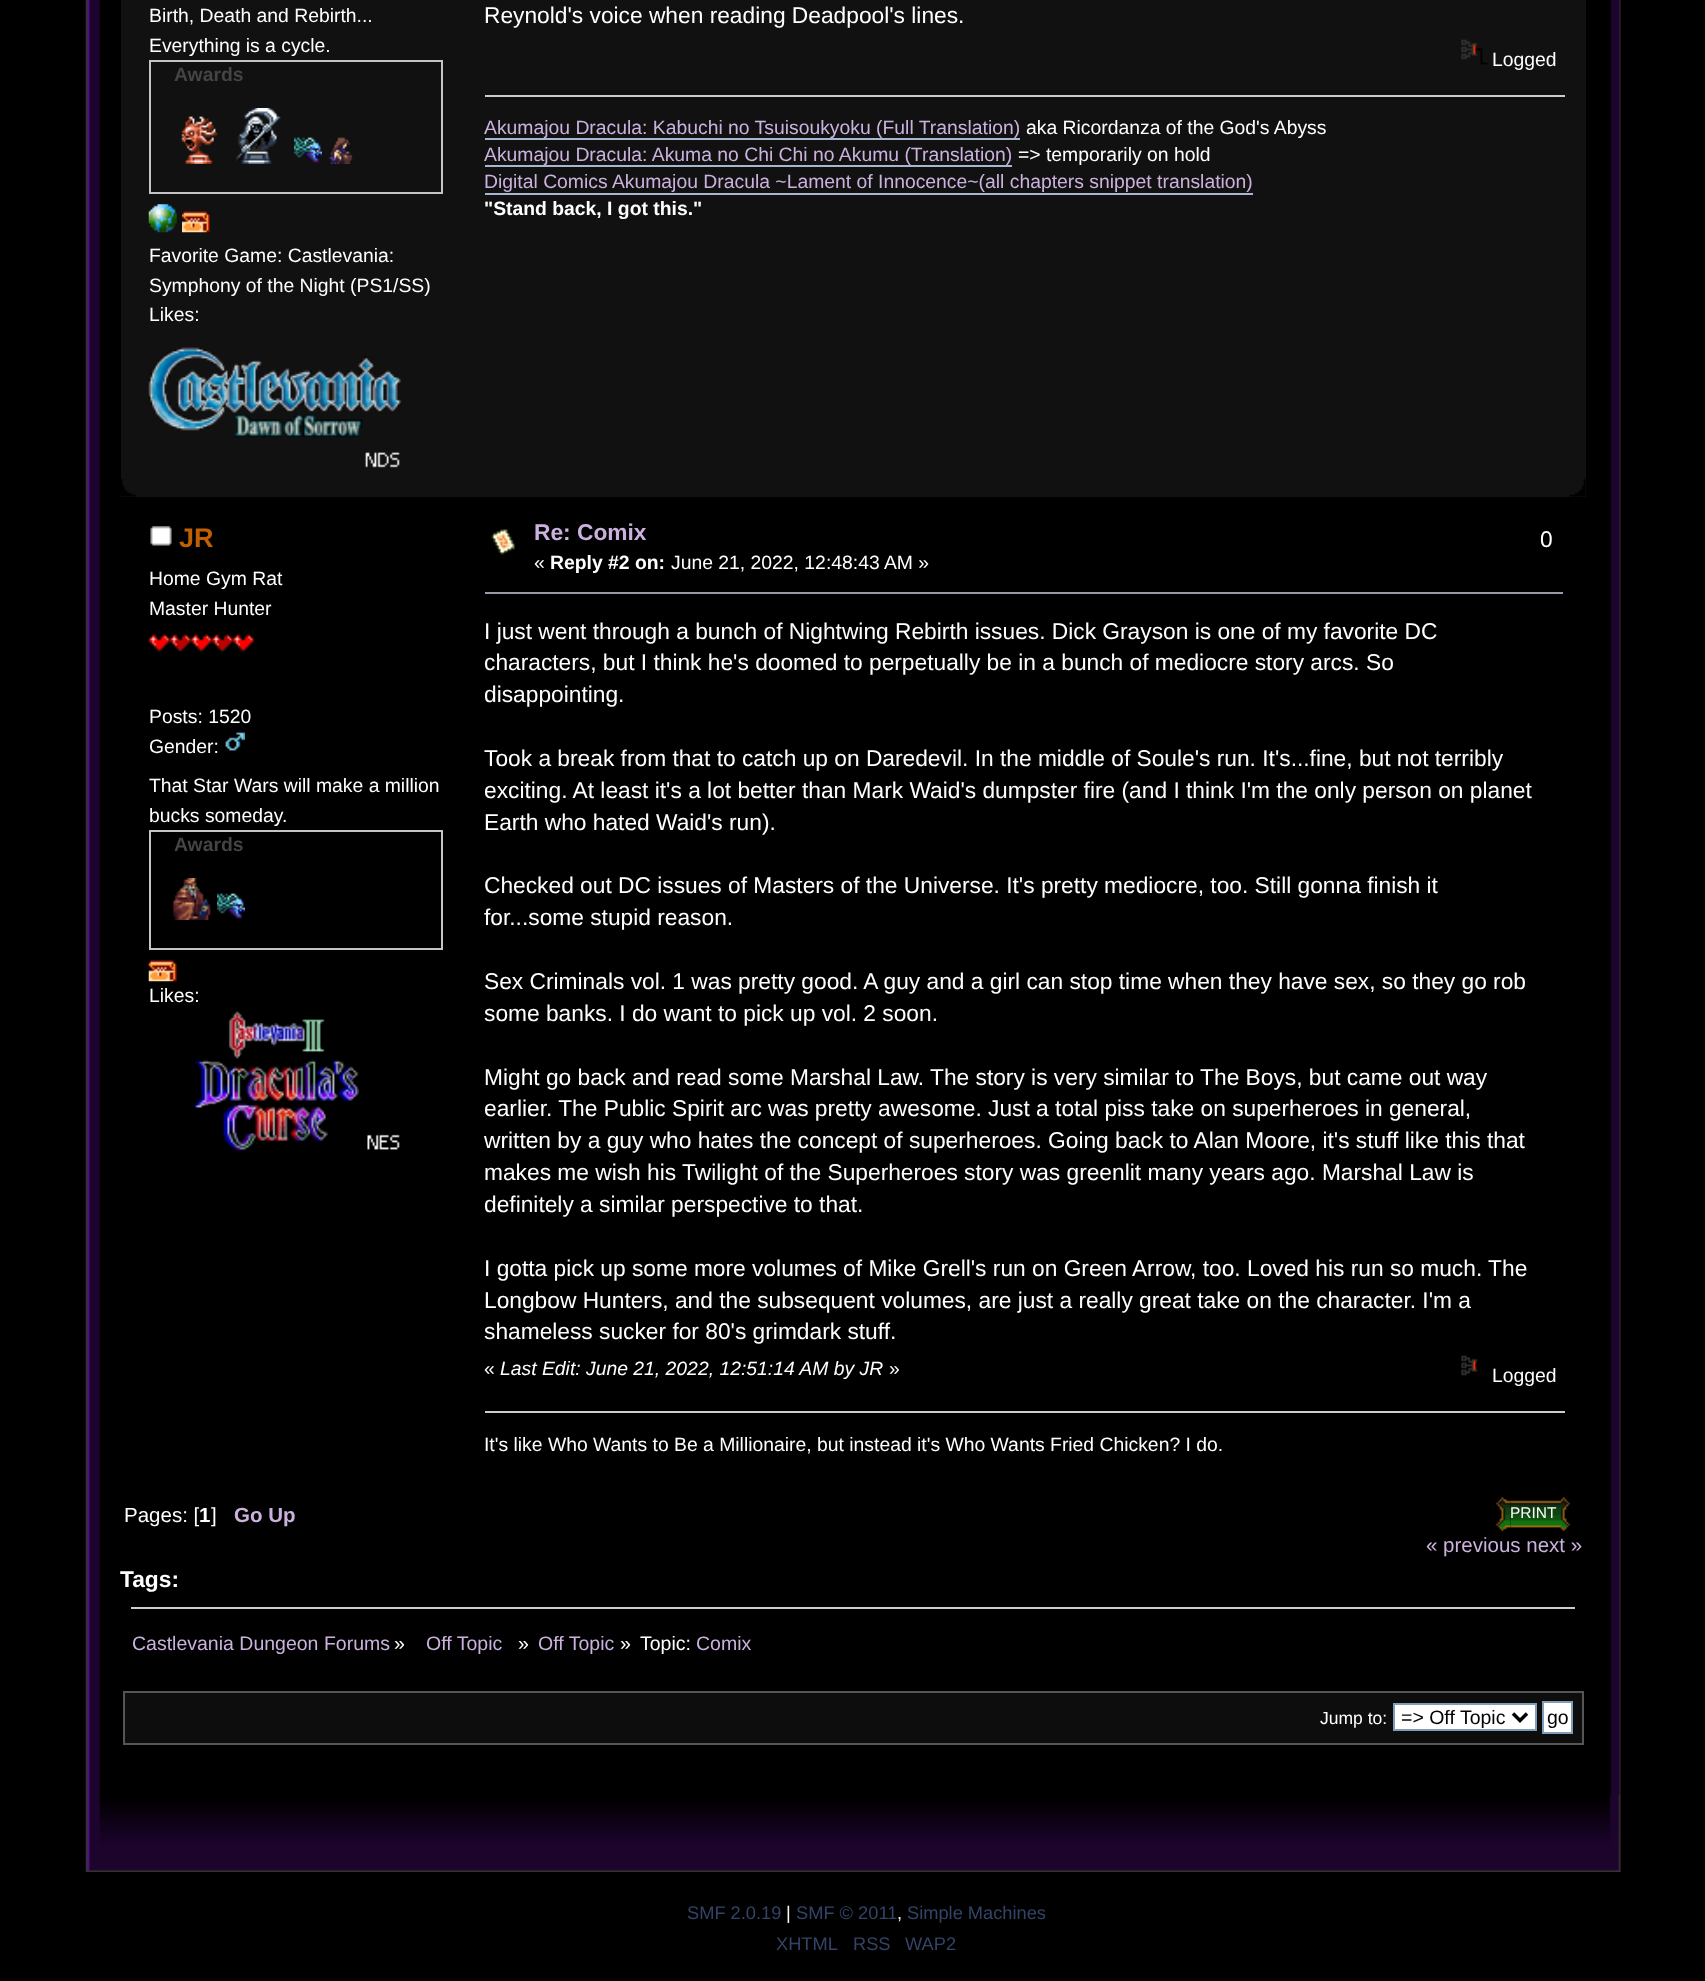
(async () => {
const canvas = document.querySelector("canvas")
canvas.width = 1705
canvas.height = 1981
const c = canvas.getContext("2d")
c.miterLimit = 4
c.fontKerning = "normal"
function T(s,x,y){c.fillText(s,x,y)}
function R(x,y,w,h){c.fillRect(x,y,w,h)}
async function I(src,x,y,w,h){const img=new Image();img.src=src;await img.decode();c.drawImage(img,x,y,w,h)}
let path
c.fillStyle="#000"
R(0,0,1705,1981)
await I("1.png",85,0,1536,1795)
await I("2.png",1610,0,11,1795)
c.fillStyle="#111"
R(121,0,1465,497)
c.font="19.35px Liberation Sans"
c.fillStyle="#fff"
T("Birth, Death and Rebirth...",149,22)
T("Everything is a cycle.",149,52)
c.strokeStyle="#c4c4c4"
c.lineWidth=2
c.strokeRect(150,61,292,132)
c.font="bold 19.35px Liberation Sans"
c.fillStyle="#444"
T("Awards",174,81)
await I("3.png",181,116,37,48)
await I("4.png",236,108,45,56)
await I("5.png",294,137,28,26)
await I("6.png",328,137,25,27)
await I("7.png",148,204,29,29)
await I("8.png",182,211,28,22)
c.font="19.35px Liberation Sans"
c.fillStyle="#fff"
T("Favorite Game: Castlevania:",149,262)
T("Symphony of the Night (PS1/SS)",149,292)
T("Likes:",149,321)
await I("9.png",148,347,253,121)
c.font="22.75px Liberation Sans"
T("Reynold's voice when reading Deadpool's lines.",484,23)
await I("10.png",1461,39,27,26)
c.font="19.35px Liberation Sans"
T("Logged",1492,66)
c.fillStyle="#ccc"
R(485,95,1080,2)
c.fillStyle="#cbb2de"
T("Akumajou Dracula: Kabuchi no Tsuisoukyoku (Full Translation)",484,134)
c.fillStyle="#a8b6cf"
R(485,138,535,2)
c.fillStyle="#fff"
T("aka Ricordanza of the God's Abyss",1026,134)
c.fillStyle="#cbb2de"
T("Akumajou Dracula: Akuma no Chi Chi no Akumu (Translation)",484,161)
c.fillStyle="#a8b6cf"
R(485,165,527,2)
c.fillStyle="#fff"
T("=> temporarily on hold",1018,161)
c.fillStyle="#cbb2de"
T("Digital Comics Akumajou Dracula ~Lament of Innocence~(all chapters snippet translation)",484,188)
c.fillStyle="#a8b6cf"
R(485,193,768,2)
c.font="bold 19.35px Liberation Sans"
c.fillStyle="#fff"
T("\"Stand back, I got this.\"",484,215)
await I("11.png",121,479,16,18)
await I("12.png",1569,479,17,18)
await I("13.png",150,526,22,20)
c.font="bold 27px Liberation Sans"
c.fillStyle="#c06002"
T("JR",179,547)
c.font="19.35px Liberation Sans"
c.fillStyle="#fff"
T("Home Gym Rat",149,585)
T("Master Hunter",149,615)
await I("14.png",148,634,22,19)
await I("15.png",169,634,22,19)
await I("16.png",190,634,22,19)
await I("15.png",211,634,22,19)
await I("17.png",232,634,22,19)
T("Posts: 1520",149,723)
T("Gender:",149,753)
await I("18.png",225,732,20,19)
T("That Star Wars will make a million",149,792)
T("bucks someday.",149,822)
c.strokeRect(150,831,292,118)
c.font="bold 19.35px Liberation Sans"
c.fillStyle="#444"
T("Awards",174,851)
await I("19.png",172,878,39,42)
await I("20.png",217,893,28,26)
await I("21.png",148,960,29,22)
c.font="19.35px Liberation Sans"
c.fillStyle="#fff"
T("Likes:",149,1002)
await I("22.png",192,1011,208,140)
await I("23.png",491,529,24,26)
c.font="bold 22.75px Liberation Sans"
c.fillStyle="#cbb2de"
T("Re: Comix",534,540)
c.font="19.35px Liberation Sans"
c.fillStyle="#fff"
T("«",534,569)
c.font="bold 19.35px Liberation Sans"
T("Reply #2 on:",550,569)
c.font="19.35px Liberation Sans"
T("June 21, 2022, 12:48:43 AM »",671,569)
c.font="22.75px Liberation Sans"
T("0",1540,547)
c.fillStyle="#99a"
R(485,592,1078,2)
c.fillStyle="#fff"
T("I just went through a bunch of Nightwing Rebirth issues. Dick Grayson is one of my favorite DC",484,639)
T("characters, but I think he's doomed to perpetually be in a bunch of mediocre story arcs. So",484,670)
T("disappointing.",484,702)
T("Took a break from that to catch up on Daredevil. In the middle of Soule's run. It's...fine, but not terribly",484,766)
T("exciting. At least it's a lot better than Mark Waid's dumpster fire (and I think I'm the only person on planet",484,798)
T("Earth who hated Waid's run).",484,830)
T("Checked out DC issues of Masters of the Universe. It's pretty mediocre, too. Still gonna finish it",484,893)
T("for...some stupid reason.",484,925)
T("Sex Criminals vol. 1 was pretty good. A guy and a girl can stop time when they have sex, so they go rob",484,989)
T("some banks. I do want to pick up vol. 2 soon.",484,1021)
T("Might go back and read some Marshal Law. The story is very similar to The Boys, but came out way",484,1085)
T("earlier. The Public Spirit arc was pretty awesome. Just a total piss take on superheroes in general,",484,1116)
T("written by a guy who hates the concept of superheroes. Going back to Alan Moore, it's stuff like this that",484,1148)
T("makes me wish his Twilight of the Superheroes story was greenlit many years ago. Marshal Law is",484,1180)
T("definitely a similar perspective to that.",484,1212)
T("I gotta pick up some more volumes of Mike Grell's run on Green Arrow, too. Loved his run so much. The",484,1276)
T("Longbow Hunters, and the subsequent volumes, are just a really great take on the character. I'm a",484,1308)
T("shameless sucker for 80's grimdark stuff.",484,1339)
c.font="19.35px Liberation Sans"
T("«",484,1375)
c.font="italic 19.35px Liberation Sans"
T("Last Edit: June 21, 2022, 12:51:14 AM by JR",500,1375)
c.font="19.35px Liberation Sans"
T("»",889,1375)
await I("24.png",1461,1355,17,21)
T("Logged",1492,1382)
c.fillStyle="#ccc"
R(485,1411,1080,2)
c.fillStyle="#fff"
T("It's like Who Wants to Be a Millionaire, but instead it's Who Wants Fried Chicken? I do.",484,1451)
c.font="20.5px Liberation Sans"
T("Pages: [",124,1522)
c.font="bold 20.5px Liberation Sans"
T("1",199,1522)
c.font="20.5px Liberation Sans"
T("]",211,1522)
c.font="bold 20.5px Liberation Sans"
c.fillStyle="#cbb2de"
T("Go Up",234,1522)
await I("25.png",1496,1497,14,34)
await I("26.png",1510,1497,60,34)
c.font="15.5px Liberation Sans"
c.fillStyle="#fff"
T("PRINT",1510,1518)
c.font="20.5px Liberation Sans"
c.fillStyle="#cbb2de"
T("« previous next »",1426,1552)
c.font="bold 22.75px Liberation Sans"
c.fillStyle="#fff"
T("Tags:",120,1587)
c.fillStyle="#ccc"
R(131,1607,1444,2)
c.font="19.5px Liberation Sans"
c.fillStyle="#cbb2de"
T("Castlevania Dungeon Forums",132,1650)
c.fillStyle="#fff"
T("»",394,1650)
c.fillStyle="#cbb2de"
T("Off Topic",426,1650)
c.fillStyle="#fff"
T("»",518,1650)
c.fillStyle="#cbb2de"
T("Off Topic",538,1650)
c.fillStyle="#fff"
T("»",620,1650)
T("Topic:",640,1650)
c.fillStyle="#cbb2de"
T("Comix",696,1650)
c.fillStyle="#0d0d0d"
c.beginPath()
c.rect(124,1692,1459,52)
c.fill()
c.strokeStyle="#555"
c.stroke()
c.font="17.5px Liberation Sans"
c.fillStyle="#fff"
T("Jump to:",1320,1724)
c.beginPath()
c.rect(1394,1704,142,26)
c.fill()
c.strokeStyle="#7f9db9"
c.stroke()
path = new Path2D("M1513 1713.5l7 7l7-7")
c.strokeStyle="#000"
c.lineWidth=3.5
c.stroke(path)
c.font="19.5px Liberation Sans"
c.fillStyle="#000"
T("=> Off Topic",1401,1724)
c.fillStyle="#fff"
c.beginPath()
c.rect(1543,1702,29,31)
c.fill()
c.strokeStyle="#7f9db9"
c.lineWidth=2
c.stroke()
c.fillStyle="#000"
T("go",1547,1724)
await I("27.png",85,1795,1536,77)
await I("28.png",1609,1795,12,77)
c.font="18.25px Liberation Sans"
c.fillStyle="#346"
T("SMF 2.0.19",687,1919)
c.fillStyle="#fff"
T("|",786,1919)
c.fillStyle="#346"
T("SMF © 2011",796,1919)
c.fillStyle="#fff"
T(",",897,1919)
c.fillStyle="#346"
T("Simple Machines",907,1919)
T("XHTML",776,1950)
T("RSS",853,1950)
T("WAP2",905,1950)
})()
